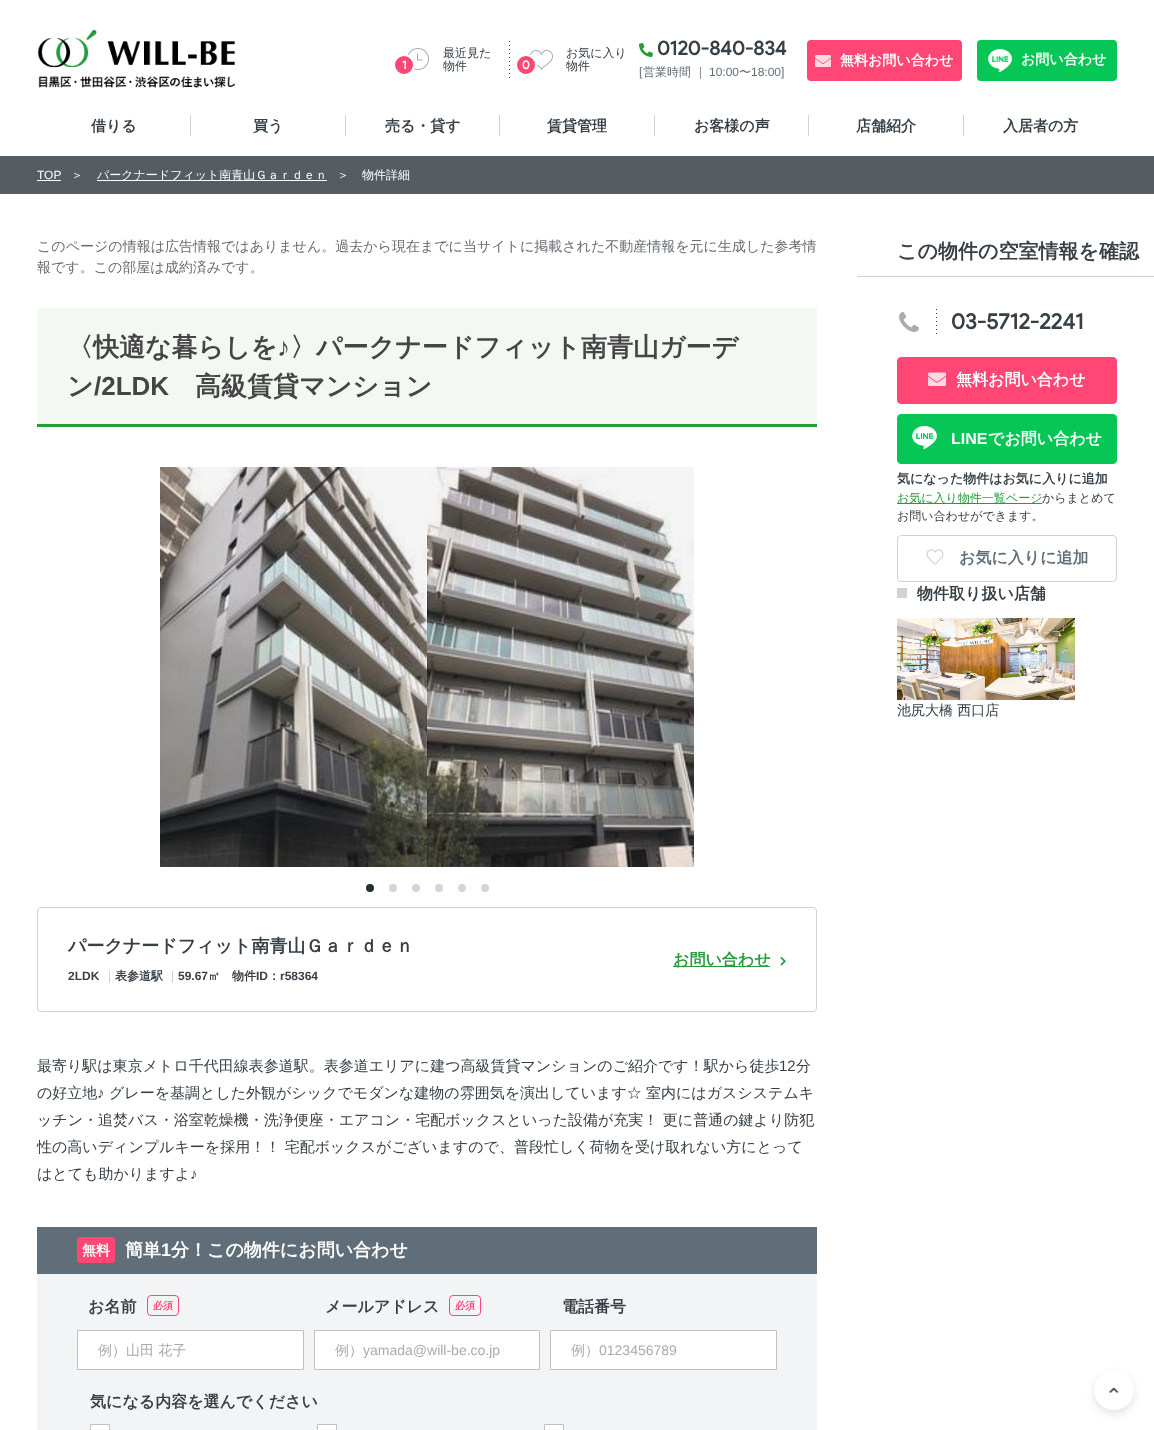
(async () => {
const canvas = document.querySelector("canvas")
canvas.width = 1154
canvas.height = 1430
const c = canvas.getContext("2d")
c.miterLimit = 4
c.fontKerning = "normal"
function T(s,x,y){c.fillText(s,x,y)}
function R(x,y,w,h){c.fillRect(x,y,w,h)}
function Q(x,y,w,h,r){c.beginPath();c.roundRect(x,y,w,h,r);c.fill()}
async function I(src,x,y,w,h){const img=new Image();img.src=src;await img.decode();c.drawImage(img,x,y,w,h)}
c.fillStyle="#fff"
R(0,0,1154,1430)
await I("1.png",37,30,199,58)
await I("2.png",407,48,22,22)
c.fillStyle="#ff4674"
c.beginPath()
c.arc(404,65,10,0,7)
c.fill()
c.strokeStyle="#fff"
c.lineWidth=2
c.stroke()
c.font="bold 12px Product Sans"
c.fillStyle="#fff"
T("1",402,69)
c.font="500 12px WenQuanYi Zen Hei"
c.fillStyle="#374047"
T("最近見た",443,57)
T("物件",443,70)
await I("3.png",509,41,1,37)
await I("4.png",530,50,23,20)
c.fillStyle="#ff4674"
c.beginPath()
c.arc(526,65,10,0,7)
c.fill()
c.stroke()
c.font="bold 12px Product Sans"
c.fillStyle="#fff"
T("0",522,69)
c.font="500 12px WenQuanYi Zen Hei"
c.fillStyle="#374047"
T("お気に入り",566,57)
T("物件",566,70)
await I("5.png",639,43,14,14)
c.font="bold 20px Product Sans"
T("0120-840-834",657,55)
c.font="12px Liberation Sans"
c.fillStyle="#606e79"
T("[",639,76)
c.font="500 12px WenQuanYi Zen Hei"
T("営業時間 ｜",643,76)
c.font="12px Liberation Sans"
T("10:00",709,76)
c.font="500 12px WenQuanYi Zen Hei"
T("〜",739,76)
c.font="12px Liberation Sans"
T("18:00]",751,76)
c.fillStyle="#ff4674"
Q(807,40,155,41,4)
await I("6.png",815,55,16,12)
c.font="bold 14px WenQuanYi Zen Hei"
c.fillStyle="#fff"
T("無料お問い合わせ",840,65)
c.fillStyle="#06c755"
Q(977,40,140,41,4)
await I("7.png",988,49,24,23)
c.fillStyle="#fff"
T("お問い合わせ",1021,64)
c.font="bold 15px WenQuanYi Zen Hei"
c.fillStyle="#374047"
T("借りる",91,131)
c.fillStyle="#cfd3d6"
R(190,115,1,21)
c.fillStyle="#374047"
T("買う",253,131)
c.fillStyle="#cfd3d6"
R(345,115,1,21)
c.fillStyle="#374047"
T("売る・貸す",385,131)
c.fillStyle="#cfd3d6"
R(499,115,1,21)
c.fillStyle="#374047"
T("賃貸管理",547,131)
c.fillStyle="#cfd3d6"
R(654,115,1,21)
c.fillStyle="#374047"
T("お客様の声",694,131)
c.fillStyle="#cfd3d6"
R(808,115,1,21)
c.fillStyle="#374047"
T("店舗紹介",856,131)
c.fillStyle="#cfd3d6"
R(963,115,1,21)
c.fillStyle="#374047"
T("入居者の方",1003,131)
c.fillStyle="#555d63"
R(0,156,1154,38)
c.font="12px Liberation Sans"
c.fillStyle="#fff"
T("TOP",37,179)
R(37,180,24,1)
c.font="500 12px WenQuanYi Zen Hei"
T("＞",71,179)
R(97,180,230,1)
T("パークナードフィット南青山Ｇａｒｄｅｎ",97,179)
T("＞",337,179)
T("物件詳細",362,179)
c.font="500 14px WenQuanYi Zen Hei"
c.fillStyle="#676c70"
T("このページの情報は広告情報ではありません。過去から現在までに当サイトに掲載された不動産情報を元に生成した参考情",37,251)
T("報です。この部屋は成約済みです。",37,272)
c.fillStyle="#f3f8f3"
R(37,308,780,116)
c.fillStyle="#279c3b"
R(37,424,780,3)
c.font="bold 26px WenQuanYi Zen Hei"
c.fillStyle="#454545"
T("〈快適な暮らしを",67,356)
c.font="bold 26px Liberation Sans"
T("♪",277,356)
c.font="bold 26px WenQuanYi Zen Hei"
T("〉パークナードフィット南青山ガーデ",290,356)
T("ン",67,395)
c.font="bold 26px Liberation Sans"
T("/2LDK",94,395)
c.font="bold 26px WenQuanYi Zen Hei"
T("高級賃貸マンション",195,395)
await I("8.png",160,467,534,400)
c.fillStyle="#253037"
c.beginPath()
c.arc(370,888,4,0,7)
c.fill()
c.fillStyle="#d3d6d7"
c.beginPath()
c.arc(393,888,4,0,7)
c.fill()
c.beginPath()
c.arc(416,888,4,0,7)
c.fill()
c.beginPath()
c.arc(439,888,4,0,7)
c.fill()
c.beginPath()
c.arc(462,888,4,0,7)
c.fill()
c.beginPath()
c.arc(485,888,4,0,7)
c.fill()
c.beginPath()
c.roundRect(37.5,907.5,779,104,3.5)
c.strokeStyle="#cfd3d6"
c.lineWidth=1
c.stroke()
c.font="bold 18px WenQuanYi Zen Hei"
c.fillStyle="#374047"
T("パークナードフィット南青山Ｇａｒｄｅｎ",68,952)
c.fillStyle="#279c3b"
R(673,966,97,1)
c.font="bold 16px WenQuanYi Zen Hei"
T("お問い合わせ",673,965)
await I("9.png",780,957,6,9)
c.font="bold 12px Liberation Sans"
c.fillStyle="#374047"
T("2LDK",68,980)
c.fillStyle="#cfd3d6"
R(109,971,1,12)
c.font="bold 12px WenQuanYi Zen Hei"
c.fillStyle="#374047"
T("表参道駅",115,980)
c.fillStyle="#cfd3d6"
R(172,971,1,12)
c.font="bold 12px Liberation Sans"
c.fillStyle="#374047"
T("59.67",178,980)
c.font="bold 12px WenQuanYi Zen Hei"
T("㎡　物件",208,980)
c.font="bold 12px Liberation Sans"
T("ID",256,980)
c.font="bold 12px WenQuanYi Zen Hei"
T("：",268,980)
c.font="bold 12px Liberation Sans"
T("r58364",280,980)
c.font="500 15px WenQuanYi Zen Hei"
T("最寄り駅は東京メトロ千代田線表参道駅。表参道エリアに建つ高級賃貸マンションのご紹介です！駅から徒歩",37,1071)
c.font="15px Liberation Sans"
T("12",779,1071)
c.font="500 15px WenQuanYi Zen Hei"
T("分",796,1071)
T("の好立地",37,1098)
c.font="15px Liberation Sans"
T("♪",97,1098)
c.font="500 15px WenQuanYi Zen Hei"
T("グレーを基調とした外観がシックでモダンな建物の雰囲気を演出しています☆",109,1098)
T("室内にはガスシステムキ",646,1098)
T("ッチン・追焚バス・浴室乾燥機・洗浄便座・エアコン・宅配ボックスといった設備が充実！ 更に普通の鍵より防犯",37,1125)
T("性の高いディンプルキーを採用！！ 宅配ボックスがございますので、普段忙しく荷物を受け取れない方にとって",37,1152)
T("はとても助かりますよ",37,1179)
c.font="15px Liberation Sans"
T("♪",190,1179)
c.fillStyle="#f3f4f5"
R(37,1274,780,156)
c.fillStyle="#606e79"
R(37,1227,780,47)
c.fillStyle="#ff4674"
Q(77,1237,38,26,3)
c.font="bold 14px WenQuanYi Zen Hei"
c.fillStyle="#fff"
T("無料",82,1255)
c.font="bold 18px WenQuanYi Zen Hei"
T("簡単",125,1256)
c.font="bold 18px Liberation Sans"
T("1",161,1256)
c.font="bold 18px WenQuanYi Zen Hei"
T("分！この物件にお問い合わせ",171,1256)
c.font="bold 16px WenQuanYi Zen Hei"
c.fillStyle="#374047"
T("お名前",88,1312)
c.beginPath()
c.roundRect(147.5,1295.5,31,20,3.5)
c.strokeStyle="#ff4674"
c.stroke()
c.font="bold 10px WenQuanYi Zen Hei"
c.fillStyle="#ff4674"
T("必須",153,1309)
c.fillStyle="#fff"
c.beginPath()
c.rect(77.5,1330.5,226,39)
c.fill()
c.strokeStyle="#bec1c4"
c.stroke()
c.font="500 14px WenQuanYi Zen Hei"
c.fillStyle="#abaaaa"
T("例）山田 花子",98,1355)
c.font="bold 16px WenQuanYi Zen Hei"
c.fillStyle="#374047"
T("メールアドレス",325,1312)
c.beginPath()
c.roundRect(449.5,1295.5,31,20,3.5)
c.strokeStyle="#ff4674"
c.stroke()
c.font="bold 10px WenQuanYi Zen Hei"
c.fillStyle="#ff4674"
T("必須",455,1309)
c.fillStyle="#fff"
c.beginPath()
c.rect(314.5,1330.5,225,39)
c.fill()
c.strokeStyle="#bec1c4"
c.stroke()
c.font="500 14px WenQuanYi Zen Hei"
c.fillStyle="#abaaaa"
T("例）",335,1355)
c.font="14px Liberation Sans"
T("yamada@will-be.co.jp",363,1355)
c.font="bold 16px WenQuanYi Zen Hei"
c.fillStyle="#374047"
T("電話番号",562,1312)
c.fillStyle="#fff"
c.beginPath()
c.rect(550.5,1330.5,226,39)
c.fill()
c.stroke()
c.font="500 14px WenQuanYi Zen Hei"
c.fillStyle="#abaaaa"
T("例）",571,1355)
c.font="14px Liberation Sans"
T("0123456789",599,1355)
c.font="bold 16px WenQuanYi Zen Hei"
c.fillStyle="#374047"
T("気になる内容を選んでください",90,1407)
c.fillStyle="#fff"
c.beginPath()
c.rect(90.5,1424.5,19,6)
c.fill()
c.strokeStyle="#bdc0c3"
c.stroke()
c.beginPath()
c.rect(317.5,1424.5,19,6)
c.fill()
c.stroke()
c.beginPath()
c.rect(544.5,1424.5,19,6)
c.fill()
c.stroke()
c.fillStyle="#cfd3d6"
R(857,276,297,1)
c.font="bold 20px WenQuanYi Zen Hei"
c.fillStyle="#374047"
T("この物件の空室情報を確認",897,258)
await I("10.png",899,312,20,20)
await I("11.png",936,309,1,25)
c.font="bold 22px Product Sans"
T("03-5712-2241",951,329)
c.fillStyle="#ff4674"
c.beginPath()
c.roundRect(897.5,357.5,219,46,3.5)
c.fill()
c.strokeStyle="#ff4674"
c.stroke()
await I("12.png",928,372,18,14)
c.font="bold 16px WenQuanYi Zen Hei"
c.fillStyle="#fff"
T("無料お問い合わせ",956,385)
c.fillStyle="#06c755"
c.beginPath()
c.roundRect(897.5,414.5,219,49,3.5)
c.fill()
c.strokeStyle="#06c755"
c.stroke()
await I("13.png",912,426,25,23)
c.font="bold 16px Liberation Sans"
c.fillStyle="#fff"
T("LINE",951,444)
c.font="bold 16px WenQuanYi Zen Hei"
T("でお問い合わせ",988,444)
c.font="bold 13px WenQuanYi Zen Hei"
c.fillStyle="#374047"
T("気になった物件はお気に入りに追加",897,483)
c.fillStyle="#279c3b"
R(897,503,145,1)
c.font="500 12px WenQuanYi Zen Hei"
T("お気に入り物件一覧ページ",897,502)
c.fillStyle="#374047"
T("からまとめて",1042,502)
T("お問い合わせができます。",897,520)
c.beginPath()
c.roundRect(897.5,535.5,219,46,3.5)
c.strokeStyle="#cfd3d6"
c.stroke()
await I("14.png",926,549,18,16)
c.font="bold 16px WenQuanYi Zen Hei"
c.fillStyle="#606e79"
T("お気に入りに追加",959,563)
c.fillStyle="#cfd3d6"
R(897,588,10,10)
c.fillStyle="#374047"
T("物件取り扱い店舗",917,599)
await I("15.png",897,618,178,82)
c.font="500 14px WenQuanYi Zen Hei"
T("池尻大橋 西口店",897,715)
c.fillStyle="#37404726"
c.filter="blur(4px)"
c.beginPath()
c.roundRect(1094,1374,40,40,20)
c.fill()
c.filter="none"
c.fillStyle="#fff"
c.beginPath()
c.arc(1114,1390,20,0,7)
c.fill()
await I("16.png",1109,1387,10,6)
})()
